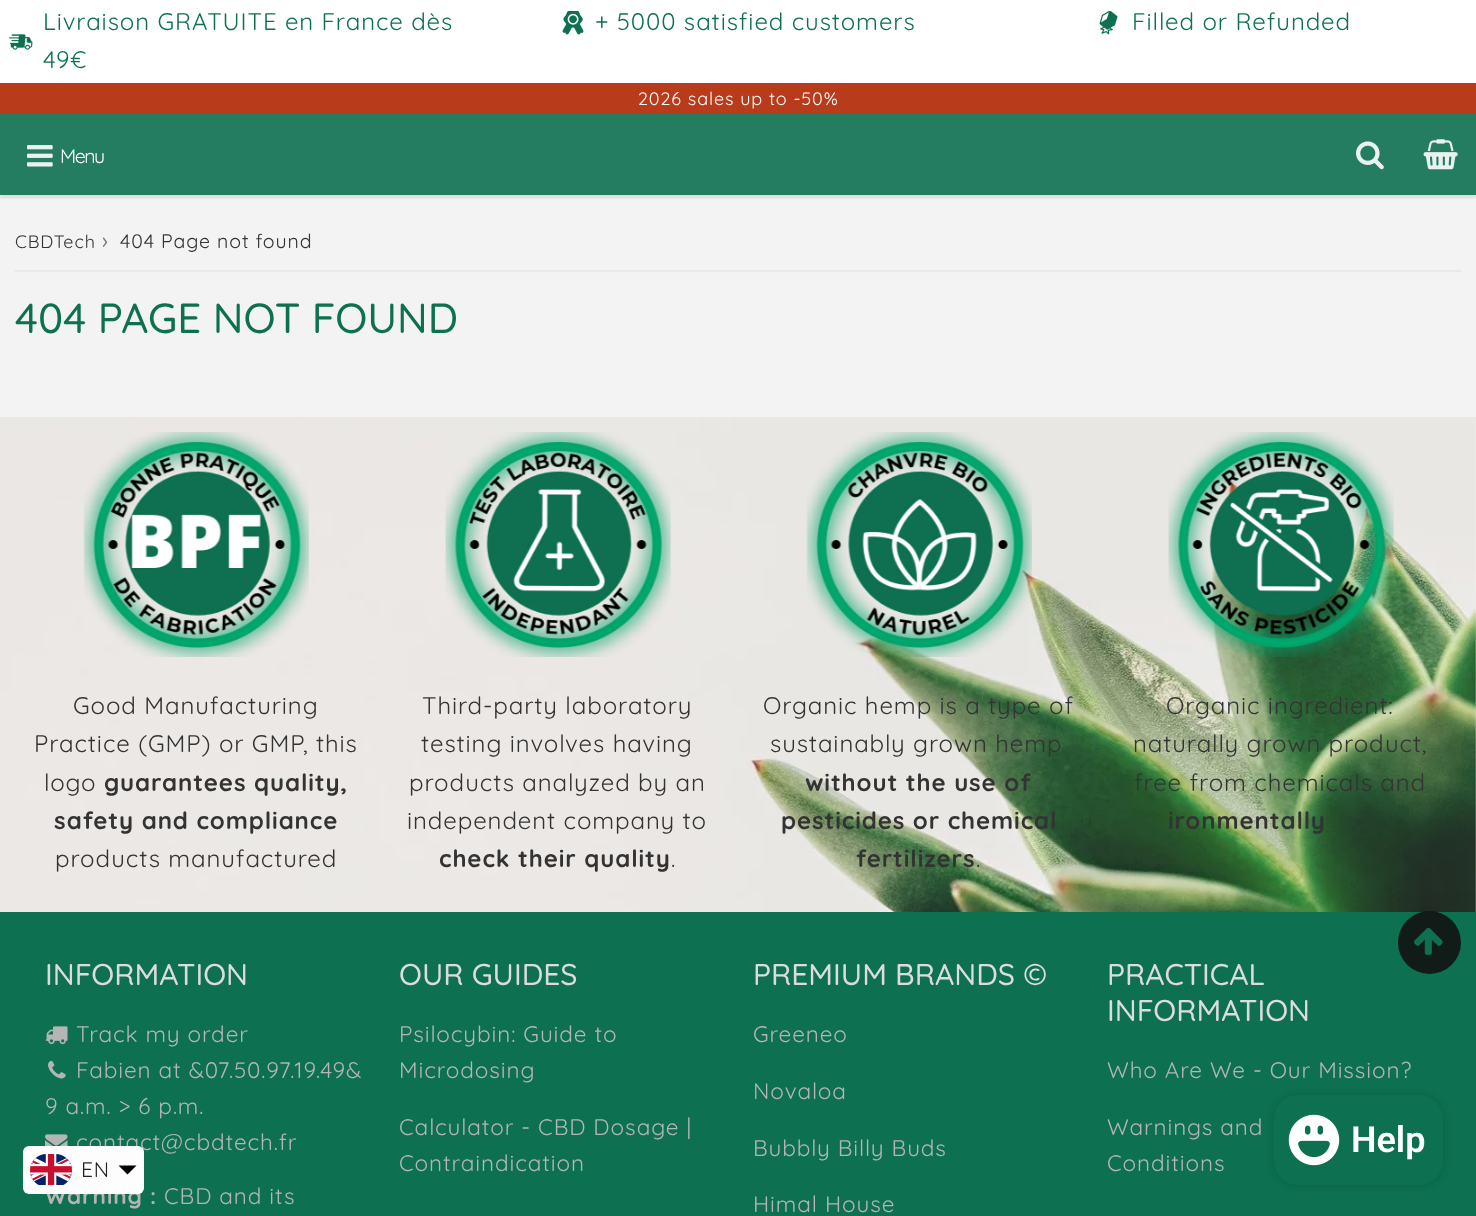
(async () => {
const canvas = document.querySelector("canvas")
canvas.width = 1476
canvas.height = 1216
const c = canvas.getContext("2d")
c.miterLimit = 4
c.fontKerning = "normal"
function T(s,x,y){c.fillText(s,x,y)}
function R(x,y,w,h){c.fillRect(x,y,w,h)}
function Q(x,y,w,h,r){c.beginPath();c.roundRect(x,y,w,h,r);c.fill()}
async function I(src,x,y,w,h){const img=new Image();img.src=src;await img.decode();c.drawImage(img,x,y,w,h)}
let path
c.fillStyle="#f3f3f3"
R(0,0,1476,1216)
c.fillStyle="#fff"
R(0,0,1476,83)
c.letterSpacing="0.9px"
c.font="24px Quicksand"
c.fillStyle="#0d7051"
T("Livraison GRATUITE en France dès",43,30)
await I("1.png",9,34,24,16)
T("49€",43,68)
await I("2.png",562,11,22,24)
T("+ 5000 satisfied customers",595,30)
await I("3.png",1099,11,19,24)
T("Filled or Refunded",1132,30)
c.fillStyle="#247d61"
R(0,114,1476,81)
c.save()
c.beginPath()
c.rect(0,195,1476,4)
c.clip()
c.fillStyle="#1818181a"
c.filter="blur(1.5px)"
c.beginPath()
c.rect(0,117,1476,81)
c.fill()
c.filter="none"
c.restore()
c.fillStyle="#b83b1b"
R(0,83,1476,31)
c.font="18px Quicksand"
c.fillStyle="#fefefe"
T("2026 sales up to -50%",638,105)
await I("4.png",27,145,26,22)
c.letterSpacing="-1.5px"
c.font="19.5px Quicksand"
T("Menu",60,163)
await I("5.png",1356,141,28,29)
await I("6.png",1423,139,35,31)
c.fillStyle="#e9e9e9"
R(15,270,1446,2)
c.letterSpacing="0.9px"
c.font="18px Quicksand"
c.fillStyle="#333"
T("CBDTech",15,248)
c.font="22.5px Quicksand"
c.fillStyle="#767676"
T("›",102,248)
c.font="19.5px Quicksand"
c.fillStyle="#333"
T("404 Page not found",120,248)
c.letterSpacing="0px"
c.font="500 42px Quicksand"
c.fillStyle="#0d7051"
T("404 PAGE NOT FOUND",15,333)
await I("7.png",0,417,1476,495)
await I("8.png",83,432,226,225)
c.letterSpacing="0.9px"
c.font="24px Quicksand"
c.fillStyle="#333"
T("Good Manufacturing",73,714)
T("Practice (GMP) or GMP, this",34,752)
T("logo",44,791)
c.font="bold 24px Quicksand"
T("guarantees quality,",104,791)
T("safety and compliance",54,829)
c.font="24px Quicksand"
T("products manufactured",55,867)
await I("9.png",445,432,226,225)
T("Third-party laboratory",422,714)
T("testing involves having",421,752)
T("products analyzed by an",409,791)
T("independent company to",407,829)
c.font="bold 24px Quicksand"
T("check their quality",439,867)
c.font="24px Quicksand"
T(".",671,867)
await I("10.png",806,432,226,225)
T("Organic hemp is a type of",763,714)
T("sustainably grown hemp",770,752)
c.font="bold 24px Quicksand"
T("without the use of",805,791)
T("pesticides or chemical",781,829)
T("fertilizers",856,867)
c.font="24px Quicksand"
T(".",976,867)
await I("11.png",1168,432,226,225)
T("Organic ingredient:",1166,714)
T("naturally grown product,",1133,752)
T("free from chemicals and",1134,791)
c.font="bold 24px Quicksand"
T("ironmentally",1168,829)
c.fillStyle="#0d7051"
R(0,912,1476,304)
c.fillStyle="#121212e6"
c.beginPath()
c.arc(1429.5,942.5,31.5,0,7)
c.fill()
await I("12.png",1414,927,29,28)
c.letterSpacing="0px"
c.font="500 30px Quicksand"
c.fillStyle="#dcdcdc"
T("INFORMATION",45,985)
await I("13.png",45,1026,23,19)
c.letterSpacing="0.9px"
c.font="22.5px Quicksand"
c.fillStyle="#b5b5b5"
T("Track my order",76,1042)
await I("14.png",48,1060,18,19)
T("Fabien at &07.50.97.19.49&",76,1078)
T("9 a.m. > 6 p.m.",45,1114)
await I("15.png",45,1134,23,12)
T("contact@cbdtech.fr",76,1150)
c.font="bold 22.5px Quicksand"
T("Warning :",45,1204)
c.font="22.5px Quicksand"
T("CBD and its",164,1204)
c.letterSpacing="0px"
c.font="500 30px Quicksand"
c.fillStyle="#dcdcdc"
T("OUR GUIDES",399,985)
c.letterSpacing="0.9px"
c.font="22.5px Quicksand"
c.fillStyle="#b5b5b5"
T("Psilocybin: Guide to",399,1042)
T("Microdosing",399,1078)
T("Calculator - CBD Dosage |",399,1135)
T("Contraindication",399,1171)
c.letterSpacing="0px"
c.font="500 30px Quicksand"
c.fillStyle="#dcdcdc"
T("PREMIUM BRANDS ©",753,985)
c.letterSpacing="0.9px"
c.font="22.5px Quicksand"
c.fillStyle="#b5b5b5"
T("Greeneo",753,1042)
T("Novaloa",753,1099)
T("Bubbly Billy Buds",753,1156)
T("Himal House",753,1212)
c.letterSpacing="0px"
c.font="500 30px Quicksand"
c.fillStyle="#dcdcdc"
T("PRACTICAL",1107,985)
T("INFORMATION",1107,1021)
c.letterSpacing="0.9px"
c.font="22.5px Quicksand"
c.fillStyle="#b5b5b5"
T("Who Are We - Our Mission?",1107,1078)
T("Warnings and",1107,1135)
T("Conditions",1107,1171)
c.fillStyle="#00000026"
c.filter="blur(4px)"
c.beginPath()
c.roundRect(1274,1095,169,90,24)
c.fill()
c.filter="none"
c.fillStyle="#0d7051"
Q(1274,1095,169,90,24)
await I("16.png",1288,1114,52,52)
c.letterSpacing="0px"
c.font="600 36px Roboto"
c.fillStyle="#fefefe"
T("Help",1351,1152)
c.fillStyle="#fdfdfd"
Q(23,1146,121,48,6)
await I("17.png",30,1154,42,31)
c.letterSpacing="0.9px"
c.font="21px Quicksand"
c.fillStyle="#202223"
T("EN",81,1177)
c.fillStyle="#000"
path = new Path2D("M118.5 1165.5h18l-9 9z")
c.fill(path)
})()
